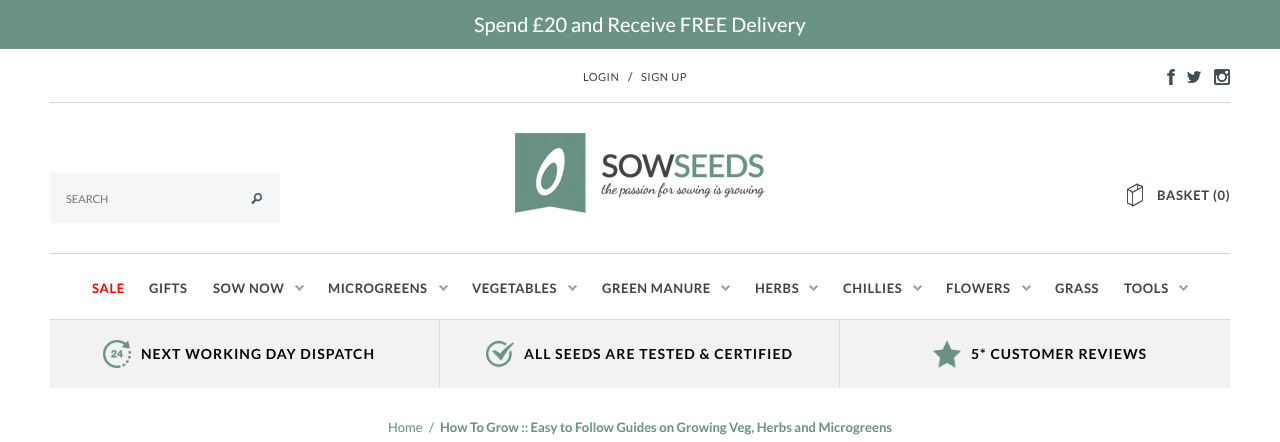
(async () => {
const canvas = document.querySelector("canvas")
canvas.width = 1280
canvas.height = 442
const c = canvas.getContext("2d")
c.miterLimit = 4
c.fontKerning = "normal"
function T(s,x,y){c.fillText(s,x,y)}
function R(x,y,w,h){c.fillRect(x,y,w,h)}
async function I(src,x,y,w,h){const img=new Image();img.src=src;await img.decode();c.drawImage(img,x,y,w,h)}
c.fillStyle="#fff"
R(0,0,1280,442)
c.fillStyle="#6a9385"
R(0,0,1280,49)
c.font="20px Lato"
c.fillStyle="#fff"
T("Spend £20 and Receive FREE Delivery",474,32)
c.fillStyle="#d2d8db"
R(50,253,1180,1)
c.fillStyle="#f4f6f7"
R(50,173,230,50)
c.font="11px Lato"
c.fillStyle="#757575"
T("SEARCH",66,203)
await I("1.png",251,193,11,12)
await I("2.png",515,133,250,80)
c.fillStyle="#d2d8db"
R(50,102,1180,1)
c.letterSpacing="0.5px"
c.fillStyle="#434343"
T("LOGIN",583,81)
c.font="12px Lato"
T("/",628,81)
c.font="11px Lato"
T("SIGN UP",641,81)
await I("3.png",1167,69,8,16)
await I("4.png",1187,71,14,12)
await I("5.png",1214,69,16,16)
await I("6.png",1127,183,16,24)
c.letterSpacing="0.6px"
c.font="bold 13px Lato"
T("BASKET",1157,200)
T("(0)",1213,200)
c.fillStyle="#d2d8db"
R(50,319,1180,1)
c.fillStyle="#f00"
T("SALE",92,293)
c.fillStyle="#434343"
T("GIFTS",149,293)
T("SOW NOW",213,293)
await I("7.png",295,285,9,6)
T("MICROGREENS",328,293)
await I("7.png",439,285,9,6)
T("VEGETABLES",472,293)
await I("7.png",568,285,9,6)
T("GREEN MANURE",602,293)
await I("7.png",721,285,9,6)
T("HERBS",755,293)
await I("7.png",809,285,9,6)
T("CHILLIES",843,293)
await I("7.png",913,285,9,6)
T("FLOWERS",946,293)
await I("7.png",1022,285,9,6)
T("GRASS",1055,293)
T("TOOLS",1124,293)
await I("7.png",1179,285,9,6)
c.fillStyle="#f2f2f2"
R(50,320,1180,68)
c.fillStyle="#ddd"
R(439,320,1,68)
await I("8.png",103,340,28,28)
c.letterSpacing="1px"
c.font="bold 14px Lato"
c.fillStyle="#000"
T("NEXT WORKING DAY DISPATCH",141,359)
c.fillStyle="#ddd"
R(839,320,1,68)
await I("9.png",486,340,28,28)
c.fillStyle="#000"
T("ALL SEEDS ARE TESTED & CERTIFIED",524,359)
await I("10.png",933,340,28,28)
T("5* CUSTOMER REVIEWS",971,359)
c.letterSpacing="0px"
c.font="13px Lato"
c.fillStyle="#699283"
T("Home",388,432)
T("/",429,432)
c.font="bold 13px Lato"
T("How To Grow :: Easy to Follow Guides on Growing Veg, Herbs and Microgreens",440,432)
})()
